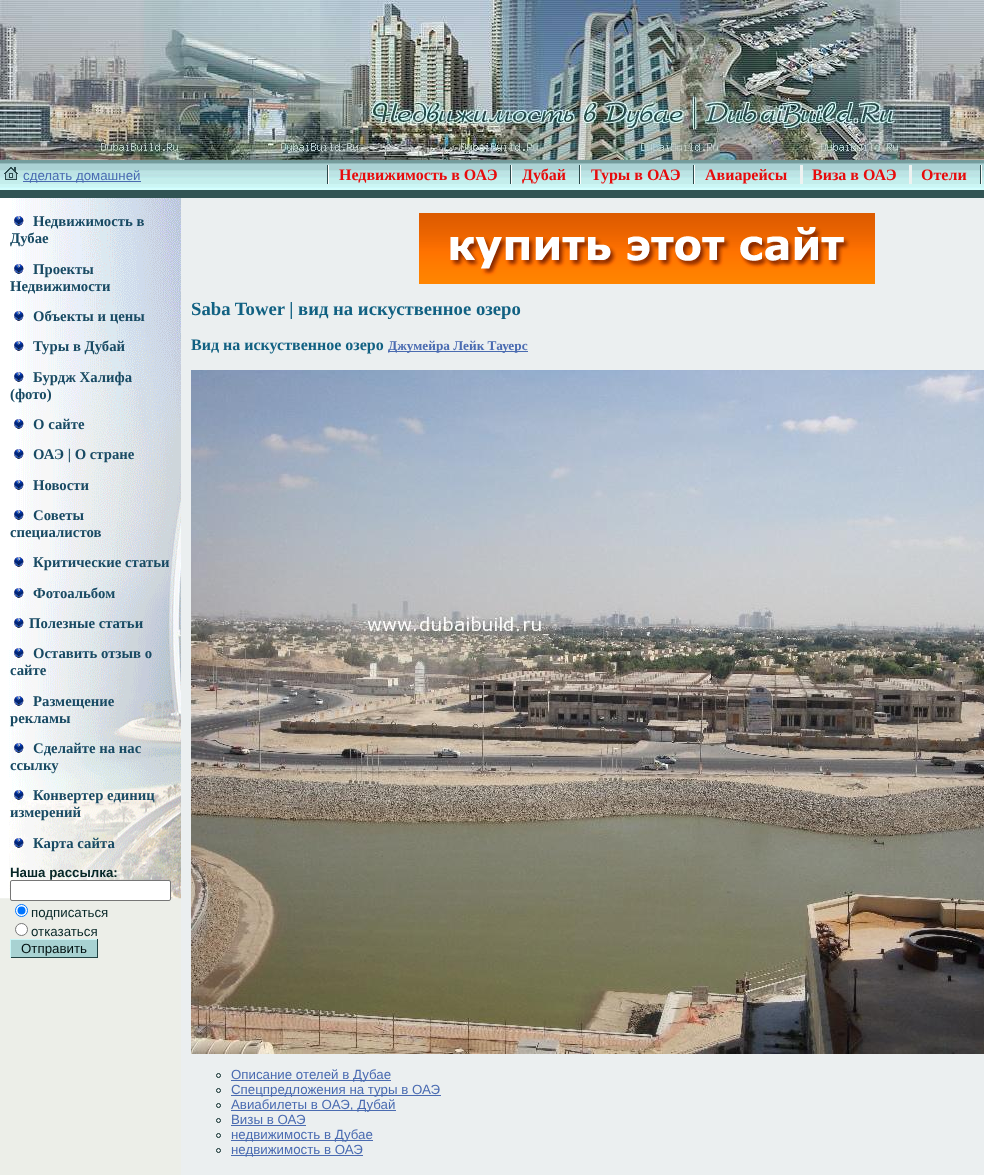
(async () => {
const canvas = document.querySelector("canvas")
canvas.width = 984
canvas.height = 1175
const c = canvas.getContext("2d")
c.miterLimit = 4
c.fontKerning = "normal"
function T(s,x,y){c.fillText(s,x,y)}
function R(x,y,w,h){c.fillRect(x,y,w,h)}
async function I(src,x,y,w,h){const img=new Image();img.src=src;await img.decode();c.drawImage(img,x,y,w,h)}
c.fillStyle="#fff"
R(0,0,984,1175)
await I("1.png",0,0,984,160)
c.fillStyle="#759c9c"
R(0,160,984,3)
await I("2.png",0,163,181,27)
await I("3.png",4,167,14,13)
c.fillStyle="#4a6bb1"
R(23,181,118,1)
c.font="13.3px Liberation Sans"
T("сделать домашней",23,180)
await I("4.png",181,163,803,27)
await I("5.png",327,165,2,19)
c.font="bold 16px Liberation Serif"
c.fillStyle="#e70c0c"
T("Недвижимость в ОАЭ",339,180)
await I("5.png",510,165,2,19)
T("Дубай",522,180)
await I("5.png",579,165,2,19)
T("Туры в ОАЭ",591,180)
await I("5.png",693,165,2,19)
T("Авиарейсы",705,180)
T("Виза в ОАЭ",812,180)
c.fillStyle="#eff2f1"
R(800,165,3,19)
c.fillStyle="#e70c0c"
T("Отели",921,180)
c.fillStyle="#eff2f1"
R(909,165,3,19)
await I("5.png",980,165,2,19)
c.fillStyle="#315454"
R(0,190,984,8)
await I("6.png",0,198,181,977)
await I("7.png",14,216,10,10)
c.font="bold 14.75px Liberation Serif"
c.fillStyle="#184a63"
T("Недвижимость в",33,226)
T("Дубае",10,243)
await I("8.png",14,264,10,10)
T("Проекты",33,274)
T("Недвижимости",10,291)
await I("9.png",14,311,10,10)
T("Объекты и цены",33,321)
await I("10.png",14,341,10,10)
T("Туры в Дубай",33,351)
await I("11.png",14,372,10,10)
T("Бурдж Халифа",33,382)
T("(фото)",10,399)
await I("12.png",14,419,10,10)
T("О сайте",33,429)
await I("13.png",14,449,10,10)
T("ОАЭ | О стране",33,459)
await I("14.png",14,480,10,10)
T("Новости",33,490)
await I("15.png",14,510,10,10)
T("Советы",33,520)
T("специалистов",10,537)
await I("16.png",14,557,10,10)
T("Критические статьи",33,567)
await I("17.png",14,588,10,10)
T("Фотоальбом",33,598)
await I("18.png",14,618,10,10)
T("Полезные статьи",29,628)
await I("19.png",14,648,10,10)
T("Оставить отзыв о",33,658)
T("сайте",10,675)
await I("20.png",14,696,10,10)
T("Размещение",33,706)
T("рекламы",10,723)
await I("21.png",14,743,10,10)
T("Сделайте на нас",33,753)
T("ссылку",10,770)
await I("22.png",14,790,10,10)
T("Конвертер единиц",33,800)
T("измерений",10,817)
await I("23.png",14,838,10,10)
T("Карта сайта",33,848)
c.font="bold 13.3px Liberation Sans"
c.fillStyle="#072727"
T("Наша рассылка:",10,877)
c.fillStyle="#fff"
c.beginPath()
c.roundRect(10.5,880.5,160,20,1.5)
c.fill()
c.strokeStyle="#767676"
c.stroke()
c.beginPath()
c.arc(21.5,910.5,6,0,7)
c.fill()
c.strokeStyle="#0075ff"
c.stroke()
c.fillStyle="#0075ff"
c.beginPath()
c.arc(21.5,910.5,4,0,7)
c.fill()
c.font="13.3px Liberation Sans"
c.fillStyle="#072727"
T("подписаться",31,917)
c.fillStyle="#fff"
c.beginPath()
c.arc(21.5,929.5,6,0,7)
c.fill()
c.strokeStyle="#767676"
c.stroke()
c.fillStyle="#072727"
T("отказаться",31,936)
c.fillStyle="#a8d2d2"
R(11,940,86,17)
c.fillStyle="#c9f6f6"
R(10,939,88,1)
c.fillStyle="#214242"
R(97,939,1,19)
R(10,957,88,1)
c.fillStyle="#c9f6f6"
R(10,939,1,19)
c.fillStyle="#000f0f"
T("Отправить",21,953)
c.fillStyle="#ebeff0"
R(181,198,803,977)
await I("24.png",419,213,456,71)
c.font="bold 18.7px Liberation Serif"
c.fillStyle="#116182"
T("Saba Tower | вид на искуственное озеро",191,315)
c.font="bold 16px Liberation Serif"
T("Вид на искуственное озеро",191,350)
c.fillStyle="#4a6bb1"
R(388,351,140,1)
c.font="bold 13.3px Liberation Serif"
T("Джумейра Лейк Тауерс",388,350)
await I("25.png",191,370,793,684)
c.beginPath()
c.arc(218.5,1075.5,2,0,7)
c.strokeStyle="#072727"
c.stroke()
R(231,1080,160,1)
c.font="13.3px Liberation Sans"
T("Описание отелей в Дубае",231,1079)
c.beginPath()
c.arc(218.5,1090.5,2,0,7)
c.stroke()
R(231,1095,210,1)
T("Спецпредложения на туры в ОАЭ",231,1094)
c.beginPath()
c.arc(218.5,1105.5,2,0,7)
c.stroke()
R(231,1110,165,1)
T("Авиабилеты в ОАЭ, Дубай",231,1109)
c.beginPath()
c.arc(218.5,1120.5,2,0,7)
c.stroke()
T("Визы в ОАЭ",231,1124)
R(231,1125,75,1)
c.beginPath()
c.arc(218.5,1135.5,2,0,7)
c.stroke()
R(231,1140,142,1)
T("недвижимость в Дубае",231,1139)
c.beginPath()
c.arc(218.5,1150.5,2,0,7)
c.stroke()
R(231,1155,132,1)
T("недвижимость в ОАЭ",231,1154)
})()
